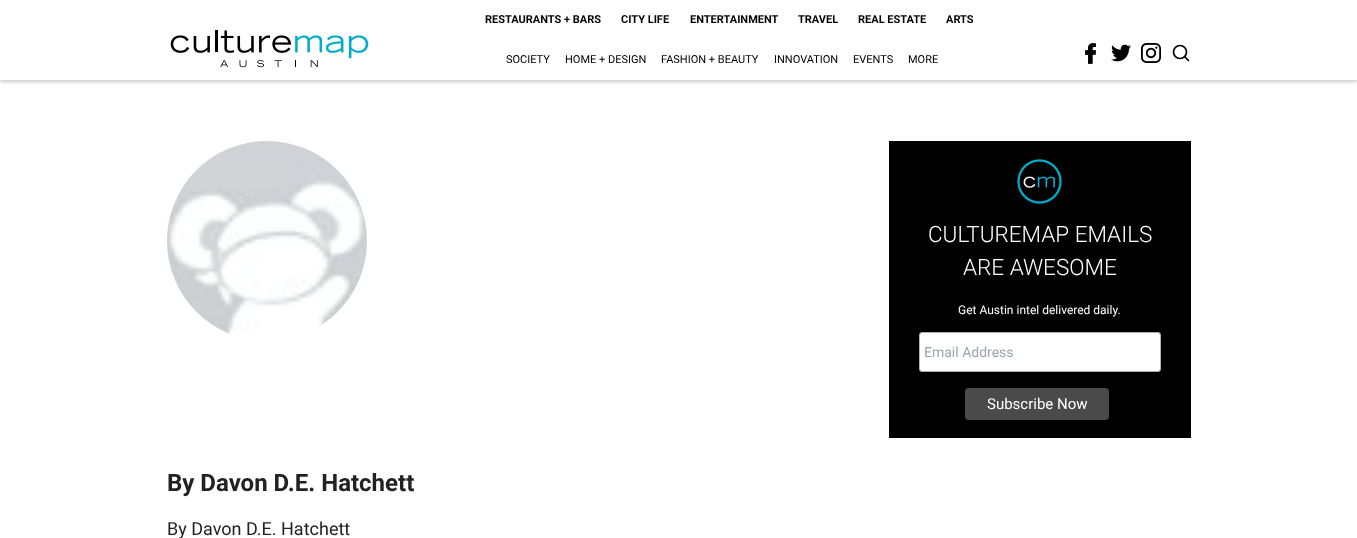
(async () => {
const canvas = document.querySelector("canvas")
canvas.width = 1357
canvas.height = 538
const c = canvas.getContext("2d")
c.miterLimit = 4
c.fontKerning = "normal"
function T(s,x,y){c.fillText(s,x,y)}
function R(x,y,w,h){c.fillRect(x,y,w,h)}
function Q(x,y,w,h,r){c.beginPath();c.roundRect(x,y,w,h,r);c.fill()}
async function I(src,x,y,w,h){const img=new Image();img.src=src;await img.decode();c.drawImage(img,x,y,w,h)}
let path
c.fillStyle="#fff"
R(0,0,1357,538)
c.save()
c.beginPath()
c.rect(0,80,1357,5)
c.clip()
c.fillStyle="#00000047"
c.filter="blur(2.5px)"
c.beginPath()
c.rect(-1,-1,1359,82)
c.fill()
c.filter="none"
c.restore()
await I("1.png",170,30,199,38)
c.font="bold 11px Roboto"
c.fillStyle="#000"
T("RESTAURANTS + BARS",485,23)
T("CITY LIFE",621,23)
T("ENTERTAINMENT",690,23)
T("TRAVEL",798,23)
T("REAL ESTATE",858,23)
T("ARTS",946,23)
c.font="11px Roboto"
T("SOCIETY",506,63)
T("HOME + DESIGN",565,63)
T("FASHION + BEAUTY",661,63)
T("INNOVATION",774,63)
T("EVENTS",853,63)
T("MORE",908,63)
await I("2.png",1085,43,11,21)
await I("3.png",1111,44,20,18)
await I("4.png",1141,43,20,20)
c.beginPath()
c.arc(1180,52,6.5,0,7)
c.strokeStyle="#000"
c.lineWidth=1.7
c.stroke()
path = new Path2D("M1188.5 60.5l-3.5-3.5")
c.lineCap="round"
c.lineJoin="round"
c.stroke(path)
R(889,141,302,297)
await I("5.png",1017,159,45,45)
c.font="300 22.5px Roboto"
c.fillStyle="#fff"
T("CULTUREMAP EMAILS",928,242)
T("ARE AWESOME",963,275)
c.font="12px Roboto"
T("Get Austin intel delivered daily.",958,314)
c.beginPath()
c.roundRect(919.5,332.5,241,39,2.5)
c.fill()
c.strokeStyle="#abb0b2"
c.lineWidth=1
c.lineJoin="miter"
c.stroke()
c.font="14px Roboto"
c.fillStyle="#9ca3af"
T("Email Address",924,357)
c.fillStyle="#4a4a4a"
Q(965,388,144,32,4)
c.font="15px Roboto"
c.fillStyle="#fff"
T("Subscribe Now",987,409)
await I("6.png",167,141,200,193)
c.font="bold 24px Roboto"
c.fillStyle="#222"
T("By Davon D.E. Hatchett",167,491)
c.font="18px Roboto"
T("By Davon D.E. Hatchett",167,535)
})()
